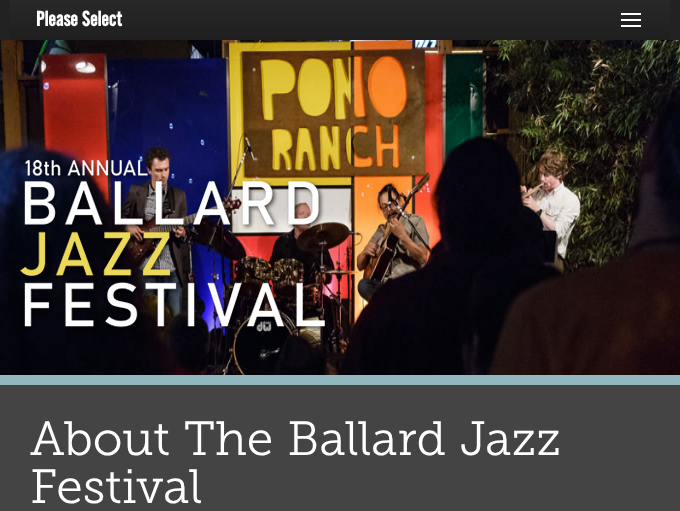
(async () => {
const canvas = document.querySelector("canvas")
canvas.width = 680
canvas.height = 511
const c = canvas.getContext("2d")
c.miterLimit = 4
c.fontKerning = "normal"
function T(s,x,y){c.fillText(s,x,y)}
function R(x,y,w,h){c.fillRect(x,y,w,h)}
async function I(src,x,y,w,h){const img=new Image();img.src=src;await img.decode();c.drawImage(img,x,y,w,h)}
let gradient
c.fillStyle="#222"
R(0,0,680,511)
gradient = c.createLinearGradient(340,0,340,40)
gradient.addColorStop(0,"#282828")
gradient.addColorStop(1,"#1f1f1f")
c.fillStyle = gradient
R(10,0,660,40)
await I("1.png",621,13,20,14)
c.font="bold 22px 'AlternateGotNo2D'"
c.fillStyle="#fff"
T("Please Select",36,26)
await I("2.png",0,40,680,335)
await I("3.png",20,160,306,172)
c.fillStyle="#91b8bf"
R(0,375,680,10)
c.fillStyle="#444"
R(0,385,680,126)
c.wordSpacing="2px"
c.font="300 48px 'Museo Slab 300'"
c.fillStyle="#fff"
T("About The Ballard Jazz",30,455)
c.wordSpacing="0px"
T("Festival",30,503)
})()
